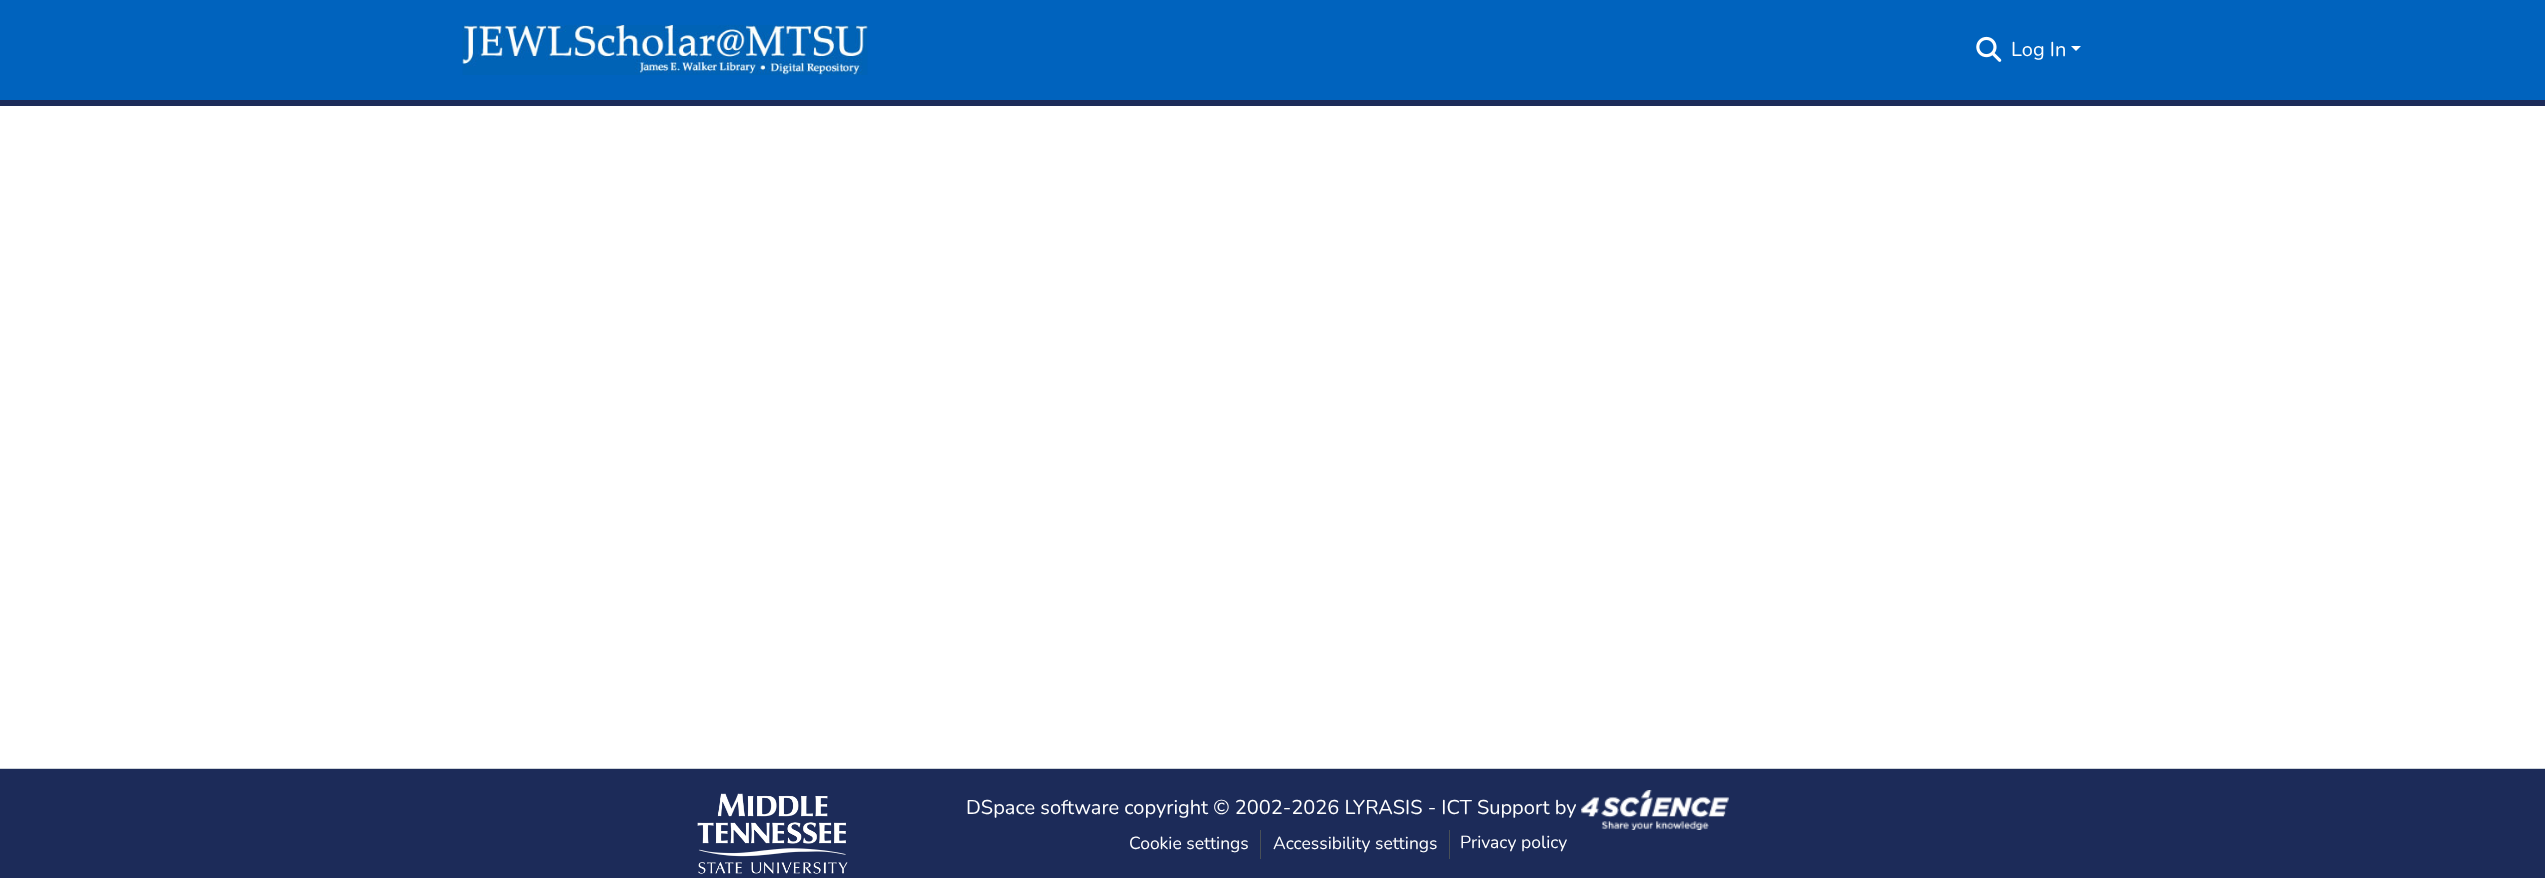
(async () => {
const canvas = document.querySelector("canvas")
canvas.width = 2545
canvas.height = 878
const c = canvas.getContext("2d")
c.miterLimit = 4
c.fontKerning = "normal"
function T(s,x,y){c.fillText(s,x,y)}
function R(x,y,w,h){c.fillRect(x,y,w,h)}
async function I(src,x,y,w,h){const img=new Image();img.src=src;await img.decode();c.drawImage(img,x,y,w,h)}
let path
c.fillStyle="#fff"
R(0,0,2545,878)
c.fillStyle="#1c2b59"
R(0,100,2545,6)
c.fillStyle="#0063be"
R(0,0,2545,100)
await I("1.png",462,25,406,50)
await I("2.png",1976,36,26,26)
c.font="20px Nunito"
c.fillStyle="#fff"
T("Log In",2011,56)
path = new Path2D("M2071 46h10l-5 5z")
c.fill(path)
c.fillStyle="#1c2b59"
R(0,769,2545,109)
c.fillStyle="#ced4da"
R(0,768,2545,1)
await I("3.png",697,793,151,81)
c.fillStyle="#fff"
T("DSpace software copyright © 2002-2026 LYRASIS - ICT Support by",966,814)
await I("4.png",1581,790,148,40)
c.font="17.5px Nunito"
T("Cookie settings",1129,849)
c.fillStyle="#495057"
R(1260,830,1,29)
c.fillStyle="#fff"
T("Accessibility settings",1273,849)
c.fillStyle="#495057"
R(1449,830,1,29)
c.fillStyle="#fff"
T("Privacy policy",1460,848)
})()
